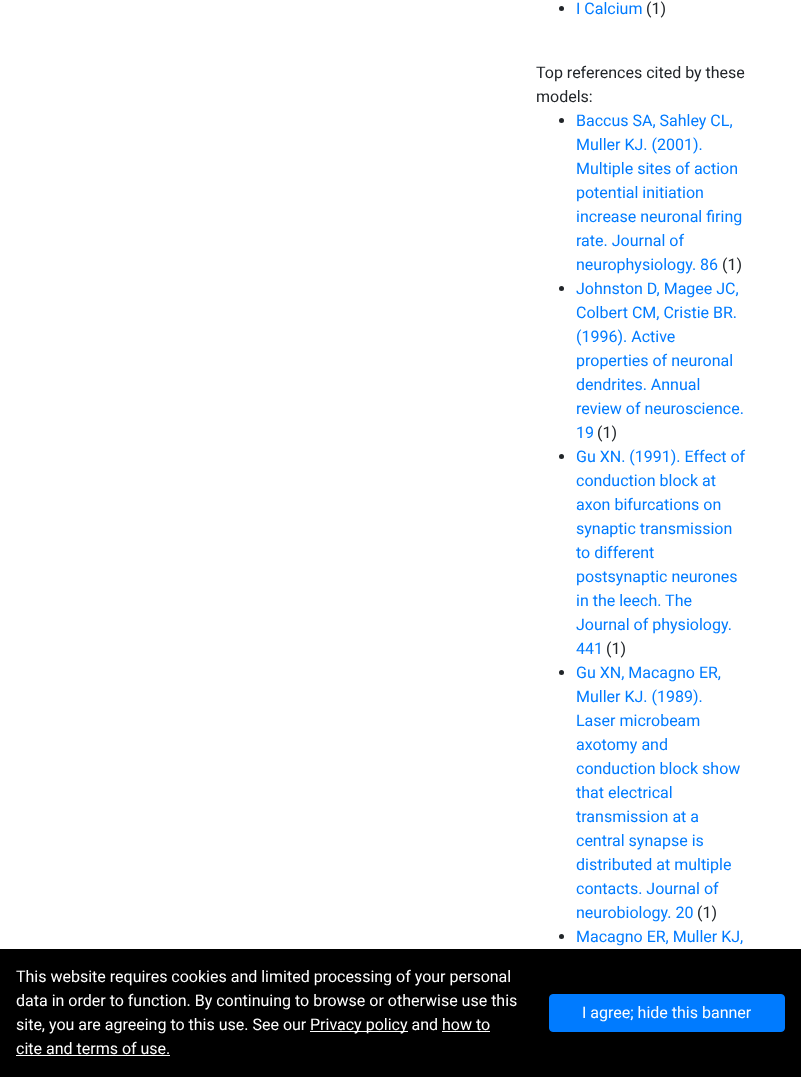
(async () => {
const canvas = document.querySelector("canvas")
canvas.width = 801
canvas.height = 1077
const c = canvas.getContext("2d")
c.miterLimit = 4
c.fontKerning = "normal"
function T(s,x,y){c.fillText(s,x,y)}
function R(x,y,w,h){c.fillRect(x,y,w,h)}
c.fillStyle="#fff"
R(0,0,801,1077)
c.fillStyle="#212529"
c.beginPath()
c.arc(561.5,8.5,2.5,0,7)
c.fill()
c.font="16px Roboto"
c.fillStyle="#007bff"
T("I Calcium",576,14)
c.fillStyle="#212529"
T("(1)",646,14)
T("Top references cited by these",536,78)
T("models:",536,102)
c.beginPath()
c.arc(561.5,120.5,2.5,0,7)
c.fill()
c.fillStyle="#007bff"
T("Baccus SA, Sahley CL,",576,126)
T("Muller KJ. (2001).",576,150)
T("Multiple sites of action",576,174)
T("potential initiation",576,198)
T("increase neuronal firing",576,222)
T("rate. Journal of",576,246)
T("neurophysiology. 86",576,270)
c.fillStyle="#212529"
T("(1)",722,270)
c.beginPath()
c.arc(561.5,288.5,2.5,0,7)
c.fill()
c.fillStyle="#007bff"
T("Johnston D, Magee JC,",576,294)
T("Colbert CM, Cristie BR.",576,318)
T("(1996). Active",576,342)
T("properties of neuronal",576,366)
T("dendrites. Annual",576,390)
T("review of neuroscience.",576,414)
T("19",576,438)
c.fillStyle="#212529"
T("(1)",597,438)
c.beginPath()
c.arc(561.5,456.5,2.5,0,7)
c.fill()
c.fillStyle="#007bff"
T("Gu XN. (1991). Effect of",576,462)
T("conduction block at",576,486)
T("axon bifurcations on",576,510)
T("synaptic transmission",576,534)
T("to different",576,558)
T("postsynaptic neurones",576,582)
T("in the leech. The",576,606)
T("Journal of physiology.",576,630)
T("441",576,654)
c.fillStyle="#212529"
T("(1)",606,654)
c.beginPath()
c.arc(561.5,672.5,2.5,0,7)
c.fill()
c.fillStyle="#007bff"
T("Gu XN, Macagno ER,",576,678)
T("Muller KJ. (1989).",576,702)
T("Laser microbeam",576,726)
T("axotomy and",576,750)
T("conduction block show",576,774)
T("that electrical",576,798)
T("transmission at a",576,822)
T("central synapse is",576,846)
T("distributed at multiple",576,870)
T("contacts. Journal of",576,894)
T("neurobiology. 20",576,918)
c.fillStyle="#212529"
T("(1)",697,918)
c.beginPath()
c.arc(561.5,936.5,2.5,0,7)
c.fill()
c.fillStyle="#007bff"
T("Macagno ER, Muller KJ,",576,942)
c.fillStyle="#000"
R(0,949,801,128)
c.fillStyle="#fff"
T("This website requires cookies and limited processing of your personal",16,982)
T("data in order to function. By continuing to browse or otherwise use this",16,1006)
T("site, you are agreeing to this use. See our",16,1030)
R(310,1031,98,1)
T("Privacy policy and how to",310,1030)
T("cite and terms of use.",16,1054)
R(442,1031,48,1)
R(16,1055,154,1)
c.fillStyle="#007bff"
c.beginPath()
c.roundRect(549.5,994.5,235,37,3.5)
c.fill()
c.strokeStyle="#007bff"
c.stroke()
c.fillStyle="#fff"
T("I agree; hide this banner",582,1018)
})()
